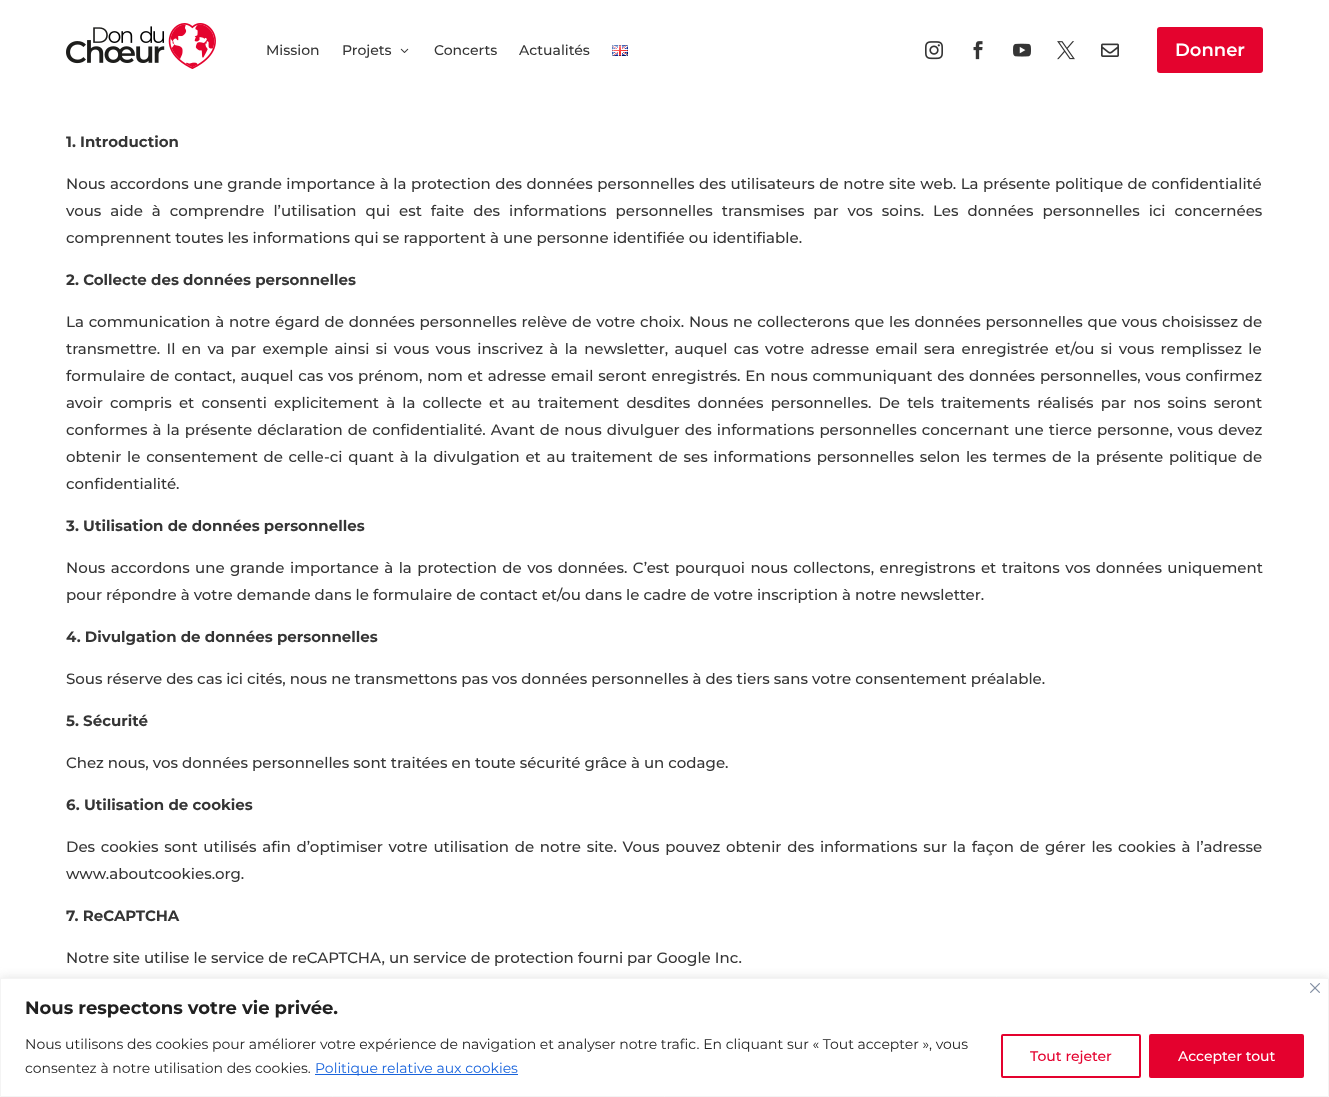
(async () => {
const canvas = document.querySelector("canvas")
canvas.width = 1329
canvas.height = 1097
const c = canvas.getContext("2d")
c.miterLimit = 4
c.fontKerning = "normal"
function T(s,x,y){c.fillText(s,x,y)}
function R(x,y,w,h){c.fillRect(x,y,w,h)}
function Q(x,y,w,h,r){c.beginPath();c.roundRect(x,y,w,h,r);c.fill()}
async function I(src,x,y,w,h){const img=new Image();img.src=src;await img.decode();c.drawImage(img,x,y,w,h)}
c.fillStyle="#fff"
R(0,0,1329,1097)
await I("1.png",66,23,150,46)
c.font="500 14px Montserrat"
c.fillStyle="#353535"
T("Mission",266,55)
T("Projets",342,55)
await I("2.png",400,48,9,5)
T("Concerts",434,55)
T("Actualités",519,55)
await I("3.png",612,45,16,11)
await I("4.png",925,41,18,19)
await I("5.png",973,41,10,19)
await I("6.png",1013,43,18,14)
await I("7.png",1057,41,18,19)
await I("8.png",1101,43,18,14)
c.fillStyle="#e4032e"
Q(1157,27,106,46,3)
c.font="600 18px Montserrat"
c.fillStyle="#fff"
T("Donner",1175,56)
c.font="bold 15px Montserrat"
c.fillStyle="#353535"
T("1. Introduction",66,147)
c.wordSpacing="0.5px"
c.font="500 15px Montserrat"
T("Nous accordons une grande importance à la protection des données personnelles des utilisateurs de notre site web. La présente politique de confidentialité",66,189)
c.wordSpacing="4.9px"
T("vous aide à comprendre l’utilisation qui est faite des informations personnelles transmises par vos soins. Les données personnelles ici concernées",66,216)
c.wordSpacing="0px"
T("comprennent toutes les informations qui se rapportent à une personne identifiée ou identifiable.",66,243)
c.font="bold 15px Montserrat"
T("2. Collecte des données personnelles",66,285)
c.wordSpacing="0.75px"
c.font="500 15px Montserrat"
T("La communication à notre égard de données personnelles relève de votre choix. Nous ne collecterons que les données personnelles que vous choisissez de",66,327)
c.wordSpacing="2.3px"
T("transmettre. Il en va par exemple ainsi si vous vous inscrivez à la newsletter, auquel cas votre adresse email sera enregistrée et/ou si vous remplissez le",66,354)
c.wordSpacing="0.75px"
T("formulaire de contact, auquel cas vos prénom, nom et adresse email seront enregistrés. En nous communiquant des données personnelles, vous confirmez",66,381)
c.wordSpacing="3.1px"
T("avoir compris et consenti explicitement à la collecte et au traitement desdites données personnelles. De tels traitements réalisés par nos soins seront",66,408)
c.wordSpacing="1px"
T("conformes à la présente déclaration de confidentialité. Avant de nous divulguer des informations personnelles concernant une tierce personne, vous devez",66,435)
c.wordSpacing="1.65px"
T("obtenir le consentement de celle-ci quant à la divulgation et au traitement de ses informations personnelles selon les termes de la présente politique de",66,462)
c.wordSpacing="0px"
T("confidentialité.",66,489)
c.font="bold 15px Montserrat"
T("3. Utilisation de données personnelles",66,531)
c.wordSpacing="1.4px"
c.font="500 15px Montserrat"
T("Nous accordons une grande importance à la protection de vos données. C’est pourquoi nous collectons, enregistrons et traitons vos données uniquement",66,573)
c.wordSpacing="0px"
T("pour répondre à votre demande dans le formulaire de contact et/ou dans le cadre de votre inscription à notre newsletter.",66,600)
c.font="bold 15px Montserrat"
T("4. Divulgation de données personnelles",66,642)
c.font="500 15px Montserrat"
T("Sous réserve des cas ici cités, nous ne transmettons pas vos données personnelles à des tiers sans votre consentement préalable.",66,684)
c.font="bold 15px Montserrat"
T("5. Sécurité",66,726)
c.font="500 15px Montserrat"
T("Chez nous, vos données personnelles sont traitées en toute sécurité grâce à un codage.",66,768)
c.font="bold 15px Montserrat"
T("6. Utilisation de cookies",66,810)
c.wordSpacing="1.7px"
c.font="500 15px Montserrat"
T("Des cookies sont utilisés afin d’optimiser votre utilisation de notre site. Vous pouvez obtenir des informations sur la façon de gérer les cookies à l’adresse",66,852)
c.wordSpacing="0px"
T("www.aboutcookies.org.",66,879)
c.font="bold 15px Montserrat"
T("7. ReCAPTCHA",66,921)
c.font="500 15px Montserrat"
T("Notre site utilise le service de reCAPTCHA, un service de protection fourni par Google Inc.",66,963)
c.fillStyle="#acabab4d"
c.filter="blur(5px)"
c.beginPath()
c.rect(0,977,1329,119)
c.fill()
c.filter="none"
c.fillStyle="#fff"
c.beginPath()
c.rect(.5,978.5,1328,118)
c.fill()
c.strokeStyle="#f4f4f4"
c.stroke()
await I("9.png",1310,983,10,10)
c.font="bold 18px Montserrat"
c.fillStyle="#212121"
T("Nous respectons votre vie privée.",25,1014)
c.font="14px Montserrat"
T("Nous utilisons des cookies pour améliorer votre expérience de navigation et analyser notre trafic. En cliquant sur « Tout accepter », vous",25,1049)
T("consentez à notre utilisation des cookies.",25,1073)
c.fillStyle="#1863dc"
R(315,1074,203,1)
T("Politique relative aux cookies",315,1073)
c.beginPath()
c.roundRect(1002,1035,138,42,1)
c.strokeStyle="#e4012e"
c.lineWidth=2
c.stroke()
c.font="500 14px Montserrat"
c.fillStyle="#e4012e"
T("Tout rejeter",1030,1061)
c.beginPath()
c.roundRect(1150,1035,153,42,1)
c.fill()
c.stroke()
c.fillStyle="#fff"
T("Accepter tout",1178,1061)
})()
